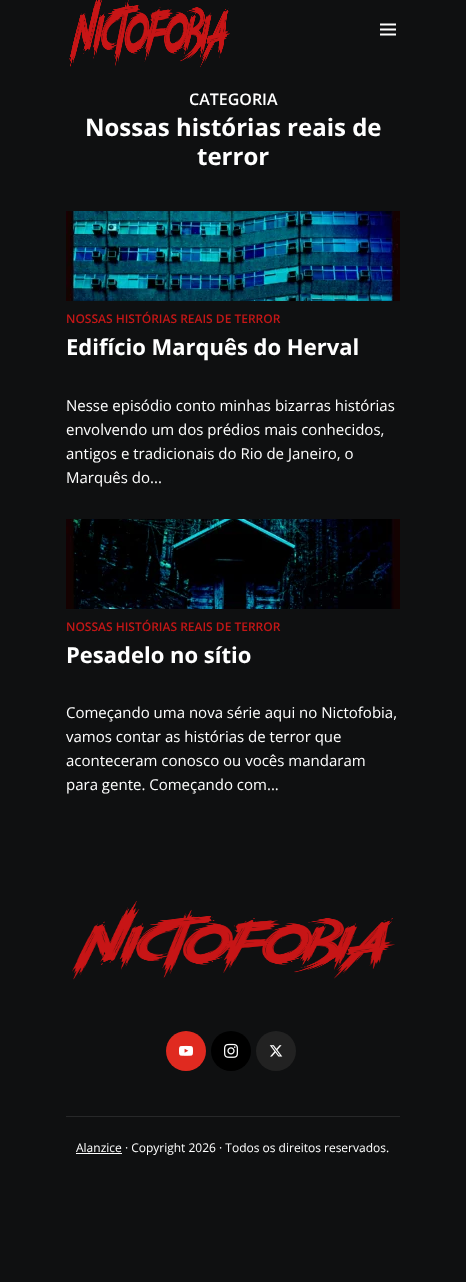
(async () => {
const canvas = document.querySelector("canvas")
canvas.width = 466
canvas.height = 1282
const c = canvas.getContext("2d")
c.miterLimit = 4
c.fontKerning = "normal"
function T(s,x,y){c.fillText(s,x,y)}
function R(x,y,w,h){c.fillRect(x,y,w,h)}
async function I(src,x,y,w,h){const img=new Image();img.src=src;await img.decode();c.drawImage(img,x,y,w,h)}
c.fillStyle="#0f1011"
R(0,0,466,1282)
await I("1.png",69,0,161,68)
await I("2.png",380,23,16,13)
c.font="600 16px Open Sans"
c.fillStyle="#fff"
T("CATEGORIA",189,105)
c.font="bold 24px Open Sans"
T("Nossas histórias reais de",85,136)
T("terror",197,165)
await I("3.png",66,211,334,90)
c.font="600 12px Open Sans"
c.fillStyle="#c51717"
T("NOSSAS HISTÓRIAS REAIS DE TERROR",66,323)
c.font="bold 22px Open Sans"
c.fillStyle="#fff"
T("Edifício Marquês do Herval",66,355)
c.font="15px Open Sans"
T("Nesse episódio conto minhas bizarras histórias",66,411)
T("envolvendo um dos prédios mais conhecidos,",66,435)
T("antigos e tradicionais do Rio de Janeiro, o",66,459)
T("Marquês do...",66,483)
await I("4.png",66,519,334,90)
c.font="600 12px Open Sans"
c.fillStyle="#c51717"
T("NOSSAS HISTÓRIAS REAIS DE TERROR",66,631)
c.font="bold 22px Open Sans"
c.fillStyle="#fff"
T("Pesadelo no sítio",66,663)
c.font="15px Open Sans"
T("Começando uma nova série aqui no Nictofobia,",66,718)
T("vamos contar as histórias de terror que",66,742)
T("aconteceram conosco ou vocês mandaram",66,766)
T("para gente. Começando com...",66,790)
await I("5.png",72,901,323,79)
c.fillStyle="#e02a20"
c.beginPath()
c.arc(186,1051,20,0,7)
c.fill()
await I("6.png",179,1045,14,11)
c.fillStyle="#000"
c.beginPath()
c.arc(231,1051,20,0,7)
c.fill()
await I("7.png",224,1043,14,15)
c.fillStyle="#222"
c.beginPath()
c.arc(276,1051,20,0,7)
c.fill()
await I("8.png",269,1045,14,12)
c.fillStyle="#272829"
R(66,1116,334,1)
c.fillStyle="#fff"
R(76,1153,46,1)
c.font="12px Open Sans"
T("Alanzice · Copyright 2026 · Todos os direitos reservados.",76,1152)
})()
